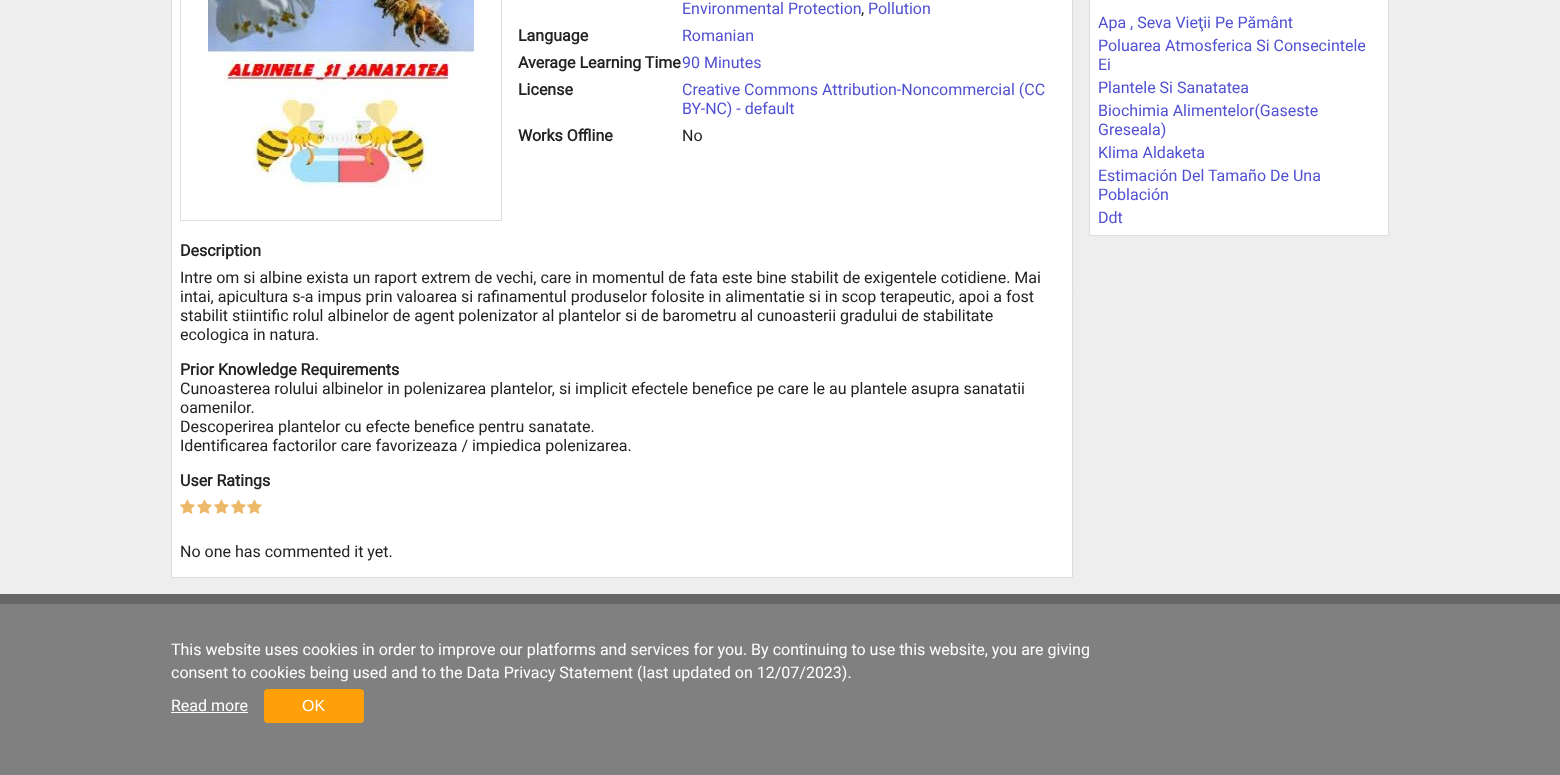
(async () => {
const canvas = document.querySelector("canvas")
canvas.width = 1560
canvas.height = 775
const c = canvas.getContext("2d")
c.miterLimit = 4
c.fontKerning = "normal"
function T(s,x,y){c.fillText(s,x,y)}
function R(x,y,w,h){c.fillRect(x,y,w,h)}
function Q(x,y,w,h,r){c.beginPath();c.roundRect(x,y,w,h,r);c.fill()}
async function I(src,x,y,w,h){const img=new Image();img.src=src;await img.decode();c.drawImage(img,x,y,w,h)}
c.fillStyle="#eee"
R(0,0,1560,775)
c.fillStyle="#fff"
c.beginPath()
c.rect(171.5,-.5,901,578)
c.fill()
c.strokeStyle="#ddd"
c.stroke()
c.strokeRect(180.5,-.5,321,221)
await I("1.png",208,0,266,188)
c.font="16px Roboto"
c.fillStyle="#5050d2"
T("Environmental Protection",682,14)
c.fillStyle="#222"
T(",",861,14)
c.fillStyle="#5050d2"
T("Pollution",868,14)
c.font="bold 16px Roboto"
c.fillStyle="#222"
T("Language",518,41)
c.font="16px Roboto"
c.fillStyle="#5050d2"
T("Romanian",682,41)
c.font="bold 16px Roboto"
c.fillStyle="#222"
T("Average Learning Time",518,68)
c.font="16px Roboto"
c.fillStyle="#5050d2"
T("90 Minutes",682,68)
c.font="bold 16px Roboto"
c.fillStyle="#222"
T("License",518,95)
c.font="16px Roboto"
c.fillStyle="#5050d2"
T("Creative Commons Attribution-Noncommercial (CC",682,95)
T("BY-NC) - default",682,114)
c.font="bold 16px Roboto"
c.fillStyle="#222"
T("Works Offline",518,141)
c.font="16px Roboto"
T("No",682,141)
c.font="bold 16px Roboto"
T("Description",180,256)
c.font="16px Roboto"
T("Intre om si albine exista un raport extrem de vechi, care in momentul de fata este bine stabilit de exigentele cotidiene. Mai",180,283)
T("intai, apicultura s-a impus prin valoarea si rafinamentul produselor folosite in alimentatie si in scop terapeutic, apoi a fost",180,302)
T("stabilit stiintific rolul albinelor de agent polenizator al plantelor si de barometru al cunoasterii gradului de stabilitate",180,321)
T("ecologica in natura.",180,340)
c.font="bold 16px Roboto"
T("Prior Knowledge Requirements",180,375)
c.font="16px Roboto"
T("Cunoasterea rolului albinelor in polenizarea plantelor, si implicit efectele benefice pe care le au plantele asupra sanatatii",180,394)
T("oamenilor.",180,413)
T("Descoperirea plantelor cu efecte benefice pentru sanatate.",180,432)
T("Identificarea factorilor care favorizeaza / impiedica polenizarea.",180,451)
c.font="bold 16px Roboto"
T("User Ratings",180,486)
await I("2.png",180,499,15,15)
await I("2.png",197,499,15,15)
await I("2.png",214,499,15,15)
await I("2.png",231,499,15,15)
await I("2.png",247,499,15,15)
c.font="16px Roboto"
T("No one has commented it yet.",180,557)
c.fillStyle="#fff"
R(1090,0,298,235)
c.fillStyle="#ddd"
R(1388,0,1,236)
R(1089,235,300,1)
R(1089,0,1,236)
c.fillStyle="#5050d2"
T("Apa , Seva Vieţii Pe Pământ",1098,28)
T("Poluarea Atmosferica Si Consecintele",1098,51)
T("Ei",1098,70)
T("Plantele Si Sanatatea",1098,93)
T("Biochimia Alimentelor(Gaseste",1098,116)
T("Greseala)",1098,135)
T("Klima Aldaketa",1098,158)
T("Estimación Del Tamaño De Una",1098,181)
T("Población",1098,200)
T("Ddt",1098,223)
c.fillStyle="#666"
R(0,594,1560,10)
c.fillStyle="#808080"
R(0,604,1560,171)
c.fillStyle="#fff"
T("This website uses cookies in order to improve our platforms and services for you. By continuing to use this website, you are giving",171,655)
T("consent to cookies being used and to the Data Privacy Statement (last updated on 12/07/2023).",171,678)
T("Read more",171,711)
R(171,712,77,1)
c.fillStyle="#ffa00a"
Q(264,689,100,34,4)
c.font="16px Liberation Sans"
c.fillStyle="#fff"
T("OK",302,711)
})()
